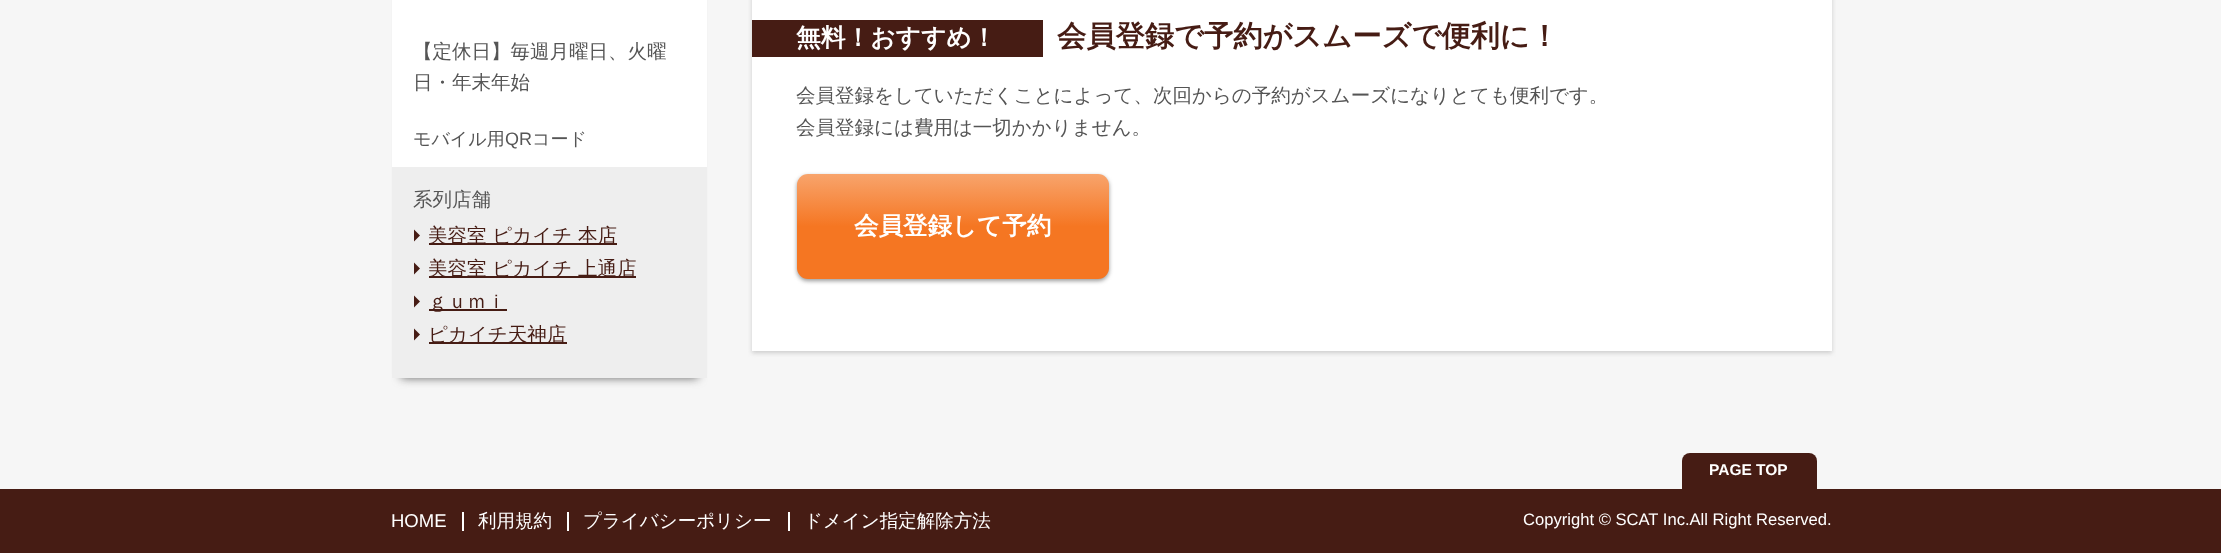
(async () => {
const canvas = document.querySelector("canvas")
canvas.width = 2221
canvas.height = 553
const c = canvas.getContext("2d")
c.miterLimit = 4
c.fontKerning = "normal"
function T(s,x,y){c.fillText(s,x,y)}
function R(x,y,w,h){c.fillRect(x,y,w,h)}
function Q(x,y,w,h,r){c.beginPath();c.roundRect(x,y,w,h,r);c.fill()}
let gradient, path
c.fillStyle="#f6f6f6"
R(0,0,2221,553)
c.fillStyle="#666"
c.filter="blur(5px)"
c.beginPath()
c.rect(401,-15,297,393)
c.fill()
c.filter="none"
c.fillStyle="#fff"
R(392,0,315,167)
c.font="500 19.5px WenQuanYi Zen Hei"
c.fillStyle="#555"
T("【定休日】毎週月曜日、火曜",413,58)
T("日・年末年始",413,89)
c.font="500 18px WenQuanYi Zen Hei"
T("モバイル用",413,145)
c.font="18px Liberation Sans"
T("QR",505,145)
c.font="500 18px WenQuanYi Zen Hei"
T("コード",532,145)
c.fillStyle="#eee"
R(392,167,315,211)
c.font="500 19.5px WenQuanYi Zen Hei"
c.fillStyle="#555"
T("系列店舗",413,206)
c.fillStyle="#461c14"
path = new Path2D("M414 241.5v-12l6 6z")
c.fill(path)
R(429,243,188,2)
T("美容室 ピカイチ 本店",428,242)
path = new Path2D("M414 274.5v-12l6 6z")
c.fill(path)
R(429,276,207,2)
T("美容室 ピカイチ 上通店",428,275)
path = new Path2D("M414 307.5v-12l6 6z")
c.fill(path)
R(429,309,78,2)
T("ｇｕｍｉ",428,308)
path = new Path2D("M414 340.5v-12l6 6z")
c.fill(path)
R(429,342,138,2)
T("ピカイチ天神店",428,341)
c.fillStyle="#ccc"
c.filter="blur(2px)"
c.beginPath()
c.rect(752,-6,1080,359)
c.fill()
c.filter="none"
c.fillStyle="#fff"
R(752,0,1080,351)
c.fillStyle="#461c14"
R(752,20,291,37)
c.font="bold 24.75px WenQuanYi Zen Hei"
c.fillStyle="#fff"
T("無料！おすすめ！",796,46)
c.font="bold 29.25px WenQuanYi Zen Hei"
c.fillStyle="#461c14"
T("会員登録で予約がスムーズで便利に！",1057,46)
c.font="500 19.5px WenQuanYi Zen Hei"
c.fillStyle="#555"
T("会員登録をしていただくことによって、次回からの予約がスムーズになりとても便利です。",796,102)
T("会員登録には費用は一切かかりません。",796,134)
c.fillStyle="#999"
c.filter="blur(2px)"
c.beginPath()
c.roundRect(797,176,312,105,11)
c.fill()
c.filter="none"
gradient = c.createLinearGradient(953,174,953,279)
gradient.addColorStop(0,"#f8a46c")
gradient.addColorStop(.5,"#f57622")
c.fillStyle = gradient
Q(797,174,312,105,11)
c.font="bold 24.5px WenQuanYi Zen Hei"
c.fillStyle="#fff"
T("会員登録して予約",854,234)
c.fillStyle="#461c14"
c.beginPath()
c.roundRect(1682,453,135,36,[8,8,0,0])
c.fill()
c.font="bold 15.5px Liberation Sans"
c.fillStyle="#fff"
T("PAGE TOP",1709,475)
c.fillStyle="#461c14"
R(0,489,2221,64)
c.font="18.5px Liberation Sans"
c.fillStyle="#fff"
T("HOME",391,527)
R(462,512,2,19)
c.font="500 18.5px WenQuanYi Zen Hei"
T("利用規約",478,527)
R(567,512,2,19)
T("プライバシーポリシー",583,527)
R(788,512,2,19)
T("ドメイン指定解除方法",804,527)
c.font="16.6px Liberation Sans"
T("Copyright © SCAT Inc.All Right Reserved.",1523,525)
})()
